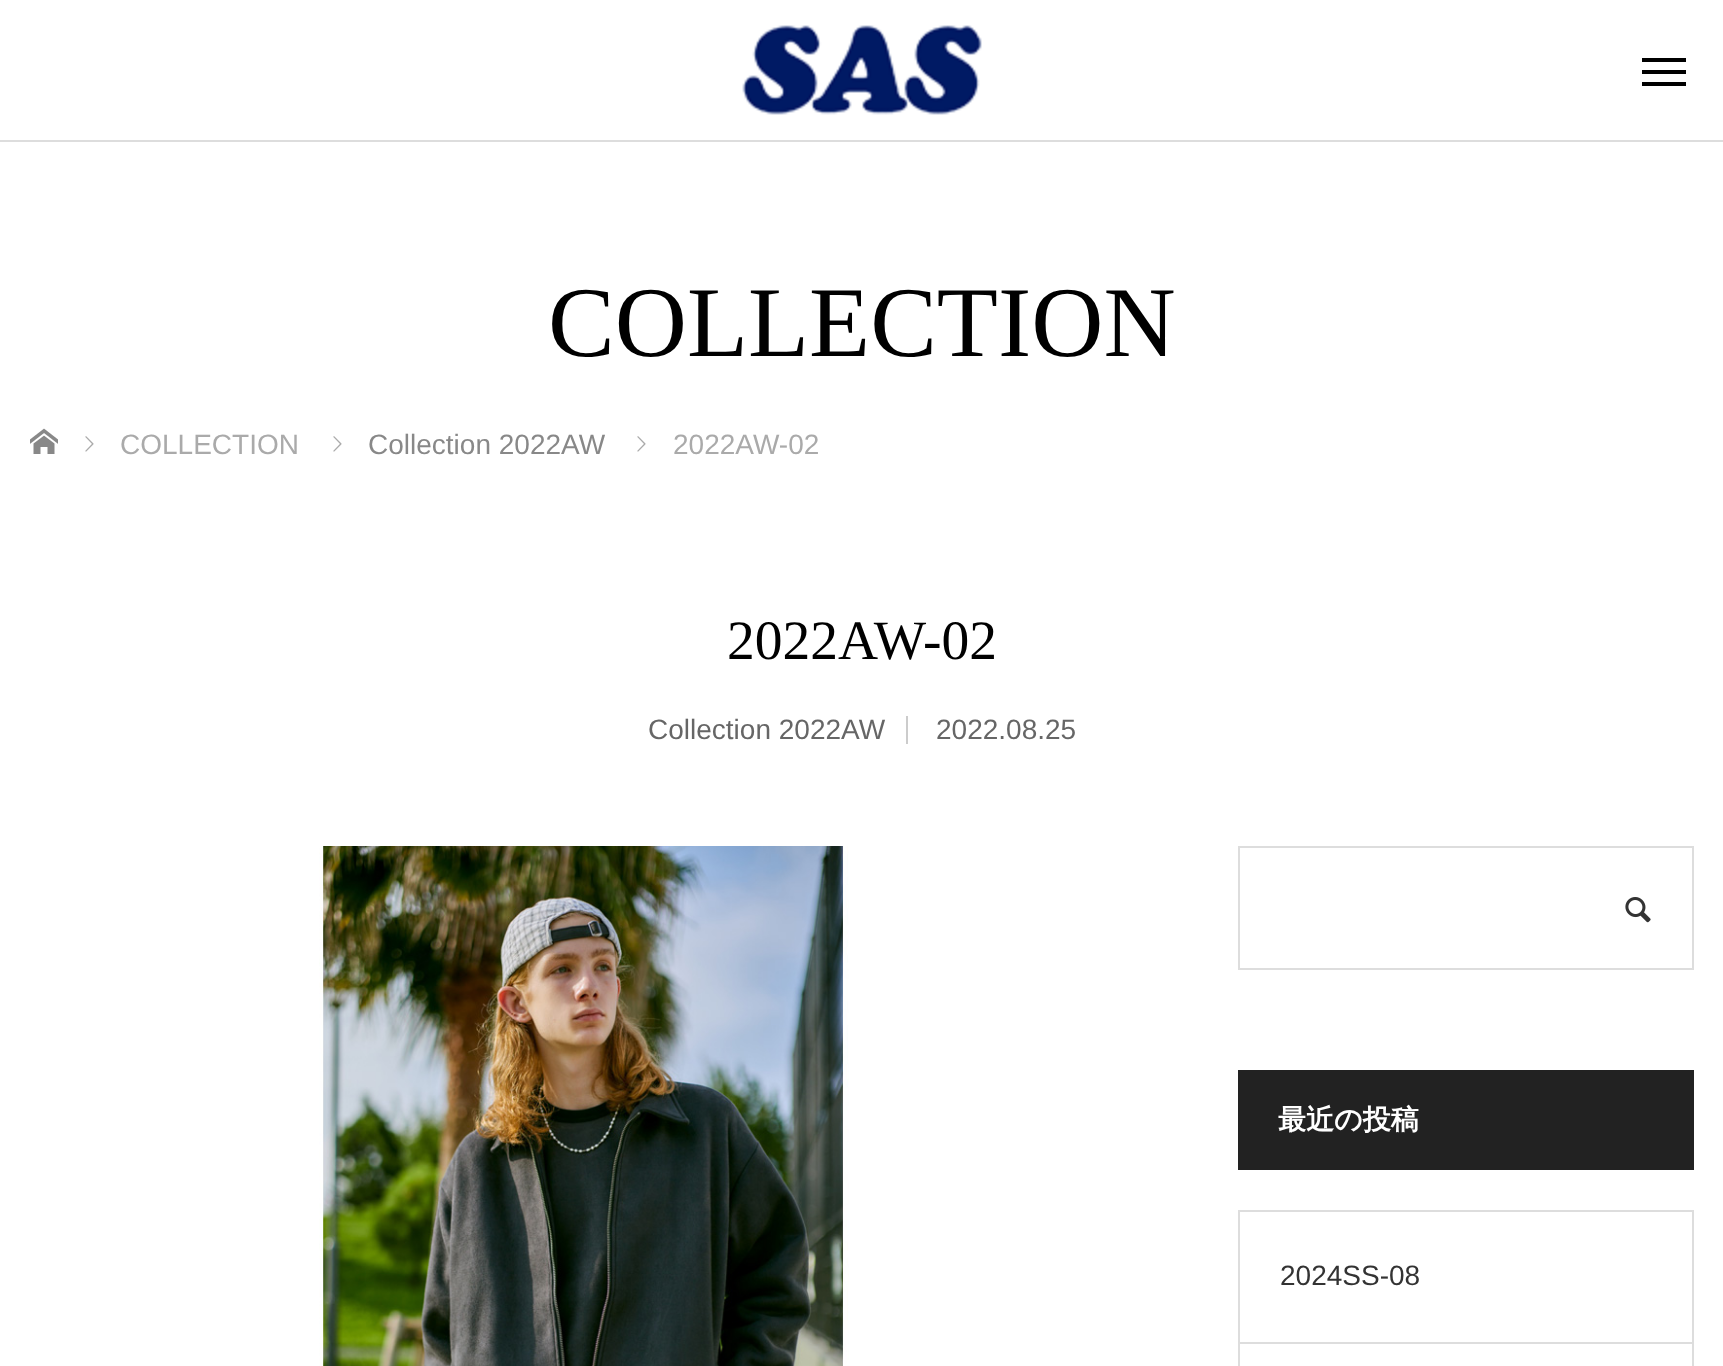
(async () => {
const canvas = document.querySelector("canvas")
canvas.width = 1723
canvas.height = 1366
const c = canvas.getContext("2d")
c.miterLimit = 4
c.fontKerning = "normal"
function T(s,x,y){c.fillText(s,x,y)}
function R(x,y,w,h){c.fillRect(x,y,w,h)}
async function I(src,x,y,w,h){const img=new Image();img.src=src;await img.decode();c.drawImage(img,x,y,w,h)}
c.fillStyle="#fff"
R(0,0,1723,1366)
c.fillStyle="#ddd"
R(0,140,1723,2)
await I("1.png",742,25,240,90)
c.fillStyle="#000"
R(1642,58,44,4)
R(1642,70,44,4)
R(1642,82,44,4)
c.font="100px Liberation Serif"
T("COLLECTION",548,356)
await I("2.png",30,428,28,26)
await I("3.png",85,436,9,16)
c.font="28px Liberation Sans"
c.fillStyle="#aaa"
T("COLLECTION",120,454)
await I("3.png",333,436,9,16)
c.fillStyle="#888"
T("Collection 2022AW",368,454)
await I("3.png",637,436,9,16)
c.fillStyle="#aaa"
T("2022AW-02",673,454)
c.font="55.5px Liberation Serif"
c.fillStyle="#000"
T("2022AW-02",727,659)
c.fillStyle="#ccc"
R(906,716,2,28)
c.font="28px Liberation Sans"
c.fillStyle="#666"
T("Collection 2022AW",648,739)
T("2022.08.25",936,739)
await I("4.png",319,846,530,520)
c.strokeStyle="#ddd"
c.lineWidth=2
c.strokeRect(1239,847,454,122)
await I("5.png",1625,897,26,26)
c.fillStyle="#222"
R(1238,1070,456,100)
c.font="bold 28px WenQuanYi Zen Hei"
c.fillStyle="#fff"
T("最近の投稿",1278,1129)
c.strokeRect(1239,1211,454,132)
c.font="28px Liberation Sans"
c.fillStyle="#333"
T("2024SS-08",1280,1285)
c.strokeRect(1239,1343,454,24)
})()
